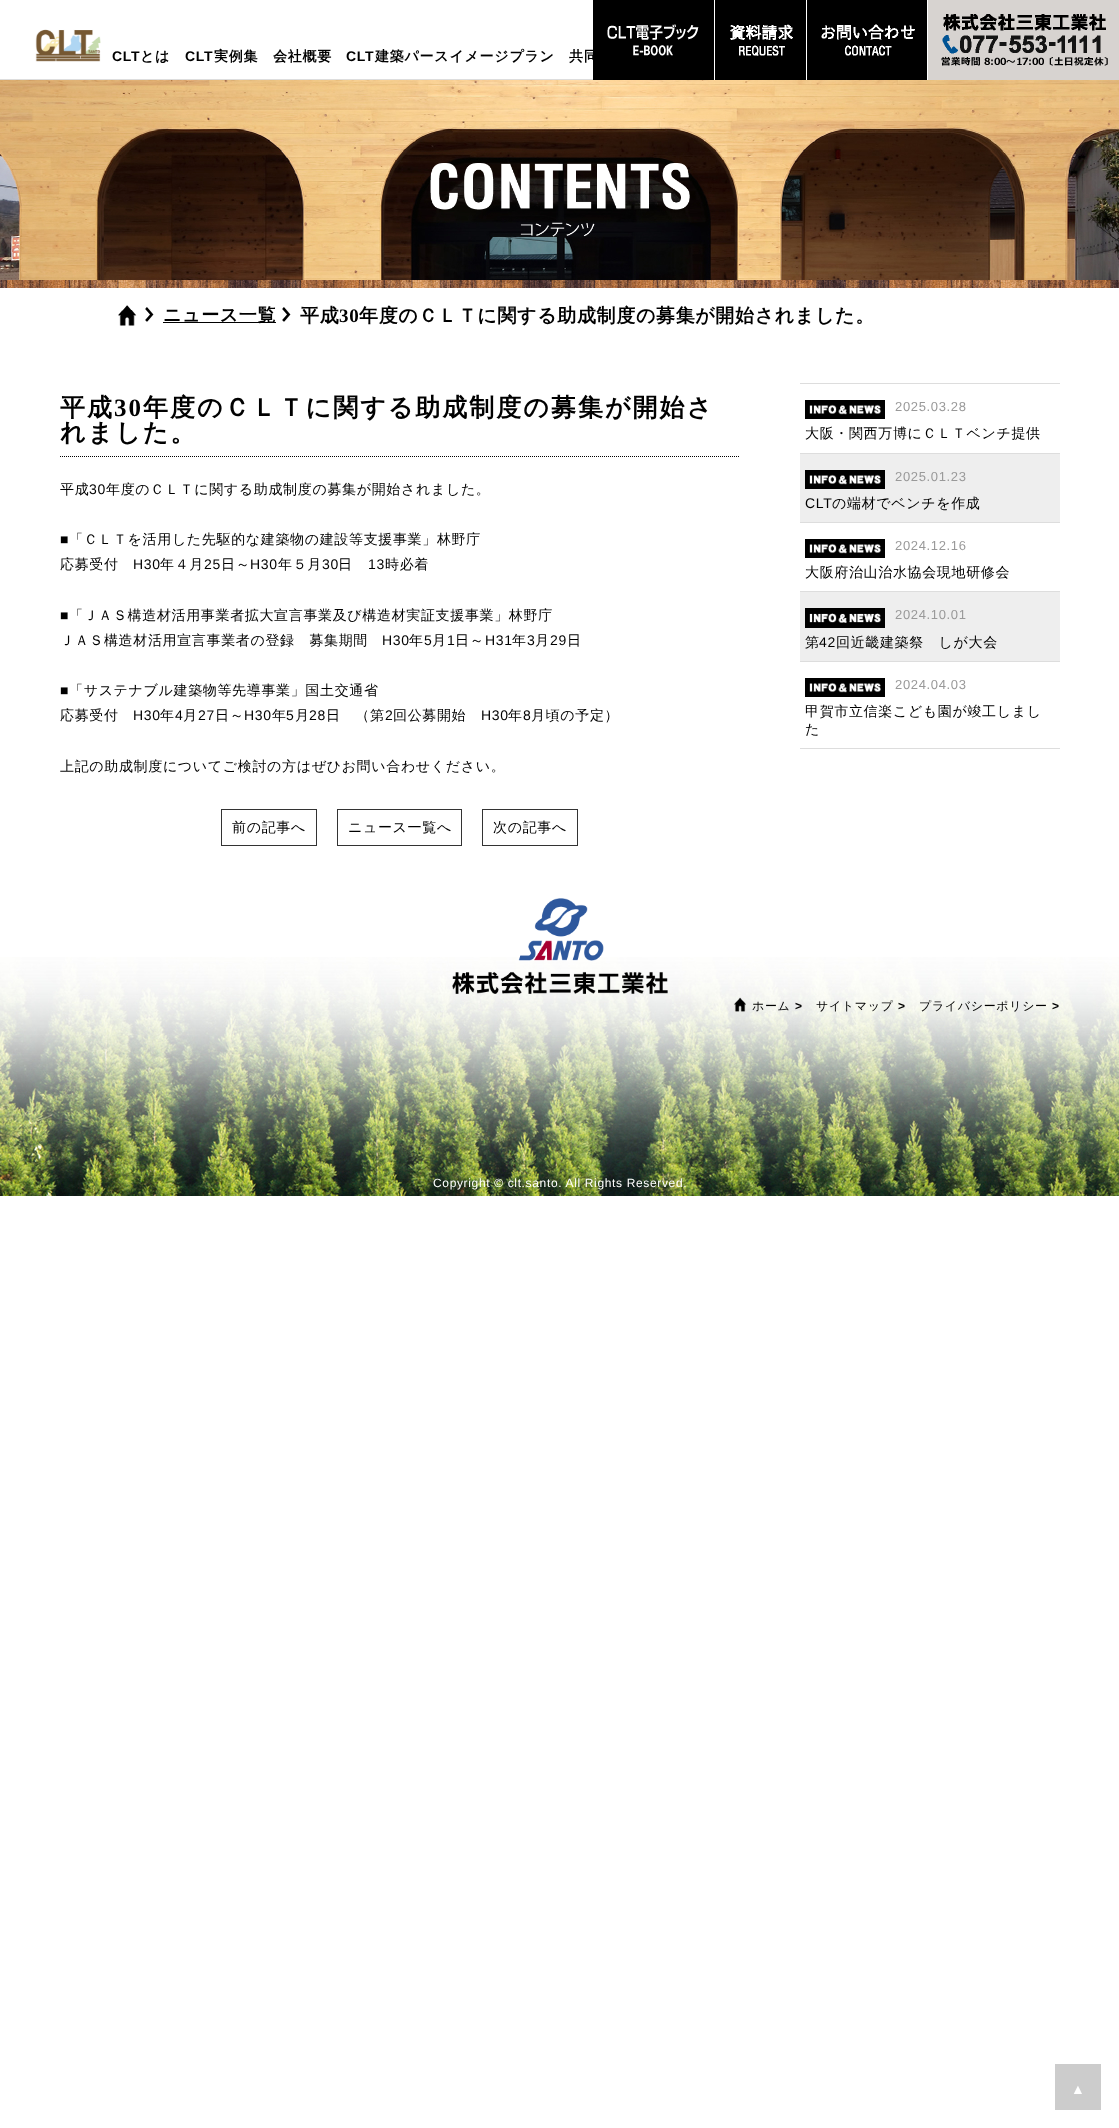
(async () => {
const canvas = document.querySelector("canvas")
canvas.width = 1119
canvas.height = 2128
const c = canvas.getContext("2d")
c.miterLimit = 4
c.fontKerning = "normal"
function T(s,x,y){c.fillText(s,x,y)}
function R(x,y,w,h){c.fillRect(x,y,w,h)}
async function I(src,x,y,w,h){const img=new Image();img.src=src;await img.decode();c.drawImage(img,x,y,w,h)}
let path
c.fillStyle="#fff"
R(0,0,1119,2128)
c.fillStyle="#ddd"
R(0,79,593,1)
await I("1.png",35,29,66,33)
c.letterSpacing="0.75px"
c.font="bold 14px Liberation Sans"
c.fillStyle="#000"
T("CLT",112,61)
c.font="bold 14px WenQuanYi Zen Hei"
T("とは",140,61)
c.font="bold 14px Liberation Sans"
T("CLT",185,61)
c.font="bold 14px WenQuanYi Zen Hei"
T("実例集",214,61)
T("会社概要",273,61)
c.font="bold 14px Liberation Sans"
T("CLT",346,61)
c.font="bold 14px WenQuanYi Zen Hei"
T("建築パースイメージプラン",375,61)
T("共同",569,61)
R(593,0,121,80)
await I("2.png",607,24,92,32)
R(715,0,91,80)
await I("3.png",730,24,63,32)
R(807,0,120,80)
await I("4.png",821,24,94,32)
c.fillStyle="#d7d3d0"
R(928,0,191,80)
await I("5.png",941,14,167,52)
await I("6.png",0,80,1119,200)
await I("7.png",430,163,260,74)
await I("8.png",0,280,1119,8)
await I("9.png",118,305,19,21)
await I("10.png",145,307,9,15)
c.fillStyle="#000"
R(163,322,113,1)
c.letterSpacing="0.65px"
c.font="bold 18px WenQuanYi Zen Hei"
T("ニュース一覧",163,321)
await I("10.png",282,307,9,15)
c.font="bold 19px WenQuanYi Zen Hei"
T("平成",300,322)
c.font="bold 19px Liberation Serif"
T("30",339,322)
c.font="bold 19px WenQuanYi Zen Hei"
T("年度のＣＬＴに関する助成制度の募集が開始されました。",359,322)
path = new Path2D("M60 456.5h680")
c.strokeStyle="#000"
c.setLineDash([1,1])
c.stroke(path)
c.letterSpacing="2px"
c.font="bold 25px WenQuanYi Zen Hei"
T("平成",60,416)
c.font="bold 25px Liberation Serif"
T("30",114,416)
c.font="bold 25px WenQuanYi Zen Hei"
T("年度のＣＬＴに関する助成制度の募集が開始さ",143,416)
T("れました。",60,441)
c.letterSpacing="0.65px"
c.font="500 14px WenQuanYi Zen Hei"
T("平成",60,494)
c.font="14px Liberation Sans"
T("30",89,494)
c.font="500 14px WenQuanYi Zen Hei"
T("年度のＣＬＴに関する助成制度の募集が開始されました。",106,494)
c.font="14px Liberation Sans"
T("■",60,544)
c.font="500 14px WenQuanYi Zen Hei"
T("「ＣＬＴを活用した先駆的な建築物の建設等支援事業」林野庁",69,544)
T("応募受付",60,569)
c.font="14px Liberation Sans"
T("H30",133,569)
c.font="500 14px WenQuanYi Zen Hei"
T("年４月",160,569)
c.font="14px Liberation Sans"
T("25",204,569)
c.font="500 14px WenQuanYi Zen Hei"
T("日～",221,569)
c.font="14px Liberation Sans"
T("H30",250,569)
c.font="500 14px WenQuanYi Zen Hei"
T("年５月",278,569)
c.font="14px Liberation Sans"
T("30",322,569)
c.font="500 14px WenQuanYi Zen Hei"
T("日",338,569)
c.font="14px Liberation Sans"
T("13",368,569)
c.font="500 14px WenQuanYi Zen Hei"
T("時必着",385,569)
c.font="14px Liberation Sans"
T("■",60,620)
c.font="500 14px WenQuanYi Zen Hei"
T("「ＪＡＳ構造材活用事業者拡大宣言事業及び構造材実証支援事業」林野庁",69,620)
T("ＪＡＳ構造材活用宣言事業者の登録　募集期間",60,645)
c.font="14px Liberation Sans"
T("H30",382,645)
c.font="500 14px WenQuanYi Zen Hei"
T("年",409,645)
c.font="14px Liberation Sans"
T("5",424,645)
c.font="500 14px WenQuanYi Zen Hei"
T("月",432,645)
c.font="14px Liberation Sans"
T("1",447,645)
c.font="500 14px WenQuanYi Zen Hei"
T("日～",455,645)
c.font="14px Liberation Sans"
T("H31",485,645)
c.font="500 14px WenQuanYi Zen Hei"
T("年",512,645)
c.font="14px Liberation Sans"
T("3",527,645)
c.font="500 14px WenQuanYi Zen Hei"
T("月",535,645)
c.font="14px Liberation Sans"
T("29",550,645)
c.font="500 14px WenQuanYi Zen Hei"
T("日",567,645)
c.font="14px Liberation Sans"
T("■",60,695)
c.font="500 14px WenQuanYi Zen Hei"
T("「サステナブル建築物等先導事業」国土交通省",69,695)
T("応募受付",60,720)
c.font="14px Liberation Sans"
T("H30",133,720)
c.font="500 14px WenQuanYi Zen Hei"
T("年",160,720)
c.font="14px Liberation Sans"
T("4",175,720)
c.font="500 14px WenQuanYi Zen Hei"
T("月",183,720)
c.font="14px Liberation Sans"
T("27",198,720)
c.font="500 14px WenQuanYi Zen Hei"
T("日～",215,720)
c.font="14px Liberation Sans"
T("H30",244,720)
c.font="500 14px WenQuanYi Zen Hei"
T("年",272,720)
c.font="14px Liberation Sans"
T("5",286,720)
c.font="500 14px WenQuanYi Zen Hei"
T("月",295,720)
c.font="14px Liberation Sans"
T("28",309,720)
c.font="500 14px WenQuanYi Zen Hei"
T("日　（第",326,720)
c.font="14px Liberation Sans"
T("2",385,720)
c.font="500 14px WenQuanYi Zen Hei"
T("回公募開始",393,720)
c.font="14px Liberation Sans"
T("H30",481,720)
c.font="500 14px WenQuanYi Zen Hei"
T("年",508,720)
c.font="14px Liberation Sans"
T("8",523,720)
c.font="500 14px WenQuanYi Zen Hei"
T("月頃の予定）",531,720)
T("上記の助成制度についてご検討の方はぜひお問い合わせください。",60,771)
c.strokeStyle="#333"
c.setLineDash([])
c.strokeRect(221.5,809.5,95,36)
T("前の記事へ",232,832)
c.strokeRect(337.5,809.5,124,36)
T("ニュース一覧へ",348,832)
c.strokeRect(482.5,809.5,95,36)
T("次の記事へ",493,832)
c.fillStyle="#ddd"
R(800,383,260,1)
R(800,453,260,1)
await I("11.png",805,400,80,19)
c.font="13px Liberation Sans"
c.fillStyle="#999"
T("2025.03.28",895,411)
c.font="500 14px WenQuanYi Zen Hei"
c.fillStyle="#000"
T("大阪・関西万博にＣＬＴベンチ提供",805,438)
c.fillStyle="#eee"
R(800,454,260,68)
c.fillStyle="#ddd"
R(800,522,260,1)
await I("11.png",805,470,80,19)
c.font="13px Liberation Sans"
c.fillStyle="#999"
T("2025.01.23",895,481)
c.font="14px Liberation Sans"
c.fillStyle="#000"
T("CLT",805,508)
c.font="500 14px WenQuanYi Zen Hei"
T("の端材でベンチを作成",832,508)
c.fillStyle="#ddd"
R(800,591,260,1)
await I("11.png",805,539,80,19)
c.font="13px Liberation Sans"
c.fillStyle="#999"
T("2024.12.16",895,550)
c.font="500 14px WenQuanYi Zen Hei"
c.fillStyle="#000"
T("大阪府治山治水協会現地研修会",805,577)
c.fillStyle="#eee"
R(800,592,260,69)
c.fillStyle="#ddd"
R(800,661,260,1)
await I("12.png",805,608,80,20)
c.font="13px Liberation Sans"
c.fillStyle="#999"
T("2024.10.01",895,619)
c.font="500 14px WenQuanYi Zen Hei"
c.fillStyle="#000"
T("第",805,647)
c.font="14px Liberation Sans"
T("42",819,647)
c.font="500 14px WenQuanYi Zen Hei"
T("回近畿建築祭　しが大会",836,647)
c.fillStyle="#ddd"
R(800,748,260,1)
await I("11.png",805,678,80,19)
c.font="13px Liberation Sans"
c.fillStyle="#999"
T("2024.04.03",895,689)
c.font="500 14px WenQuanYi Zen Hei"
c.fillStyle="#000"
T("甲賀市立信楽こども園が竣工しまし",805,716)
T("た",805,734)
await I("13.png",0,957,1119,239)
await I("14.png",452,898,216,96)
await I("15.png",734,997,12,15)
c.font="500 12px WenQuanYi Zen Hei"
T("ホーム",752,1010)
c.font="bold 12px Liberation Sans"
T(">",795,1010)
c.font="500 12px WenQuanYi Zen Hei"
T("サイトマップ",816,1010)
c.font="bold 12px Liberation Sans"
T(">",898,1010)
c.font="500 12px WenQuanYi Zen Hei"
T("プライバシーポリシー",919,1010)
c.font="bold 12px Liberation Sans"
T(">",1052,1010)
c.font="12px Liberation Sans"
c.fillStyle="#fff"
T("Copyright © clt.santo. All Rights Reserved.",433,1187)
c.fillStyle="#ccc"
R(1055,2064,46,46)
c.font="14px Liberation Sans"
c.fillStyle="#fff"
T("▲",1071,2094)
})()
